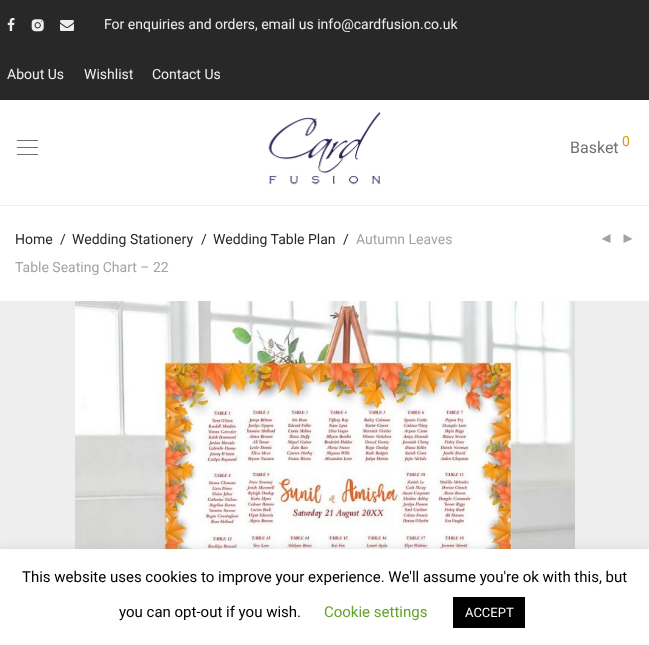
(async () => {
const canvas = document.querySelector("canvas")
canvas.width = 649
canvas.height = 645
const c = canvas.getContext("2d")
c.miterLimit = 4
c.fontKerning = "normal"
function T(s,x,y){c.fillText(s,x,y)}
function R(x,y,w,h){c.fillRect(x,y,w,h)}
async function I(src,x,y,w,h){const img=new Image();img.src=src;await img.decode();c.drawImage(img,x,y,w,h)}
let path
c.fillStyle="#fff"
R(0,0,649,645)
c.fillStyle="#282828"
R(0,0,649,100)
await I("1.png",7,18,8,13)
await I("2.png",31,19,13,13)
await I("3.png",60,20,14,11)
c.font="14px Roboto"
c.fillStyle="#eee"
T("For enquiries and orders, email us info@cardfusion.co.uk",104,29)
T("About Us",7,79)
T("Wishlist",84,79)
T("Contact Us",152,79)
R(0,205,649,1)
await I("4.png",268,112,113,73)
c.fillStyle="#707070"
R(17,140,21,1)
R(17,147,21,1)
R(17,154,21,1)
c.font="16px Roboto"
T("Basket",570,153)
c.font="14px Roboto"
c.fillStyle="#dc9814"
T("0",622,146)
c.fillStyle="#282828"
T("Home",15,244)
T("/",60,244)
T("Wedding Stationery",72,244)
T("/",201,244)
T("Wedding Table Plan",213,244)
T("/",343,244)
c.fillStyle="#a3a3a3"
T("Autumn Leaves",356,244)
T("Table Seating Chart – 22",15,272)
path = new Path2D("M610.5 234v9l-9-4zm13 0v9l9-4z")
c.fill(path)
c.fillStyle="#eee"
R(0,301,649,248)
await I("5.png",75,301,500,248)
c.fillStyle="#acabab4d"
c.filter="blur(5px)"
c.beginPath()
c.rect(0,548,649,96)
c.fill()
c.filter="none"
c.fillStyle="#fff"
R(0,549,649,96)
c.font="15px Roboto"
c.fillStyle="#000"
T("This website uses cookies to improve your experience. We'll assume you're ok with this, but",22,582)
T("you can opt-out if you wish.",119,617)
c.fillStyle="#62a329"
T("Cookie settings",324,617)
c.fillStyle="#000"
R(453,597,72,31)
c.font="13px Roboto"
c.fillStyle="#fff"
T("ACCEPT",465,617)
})()
